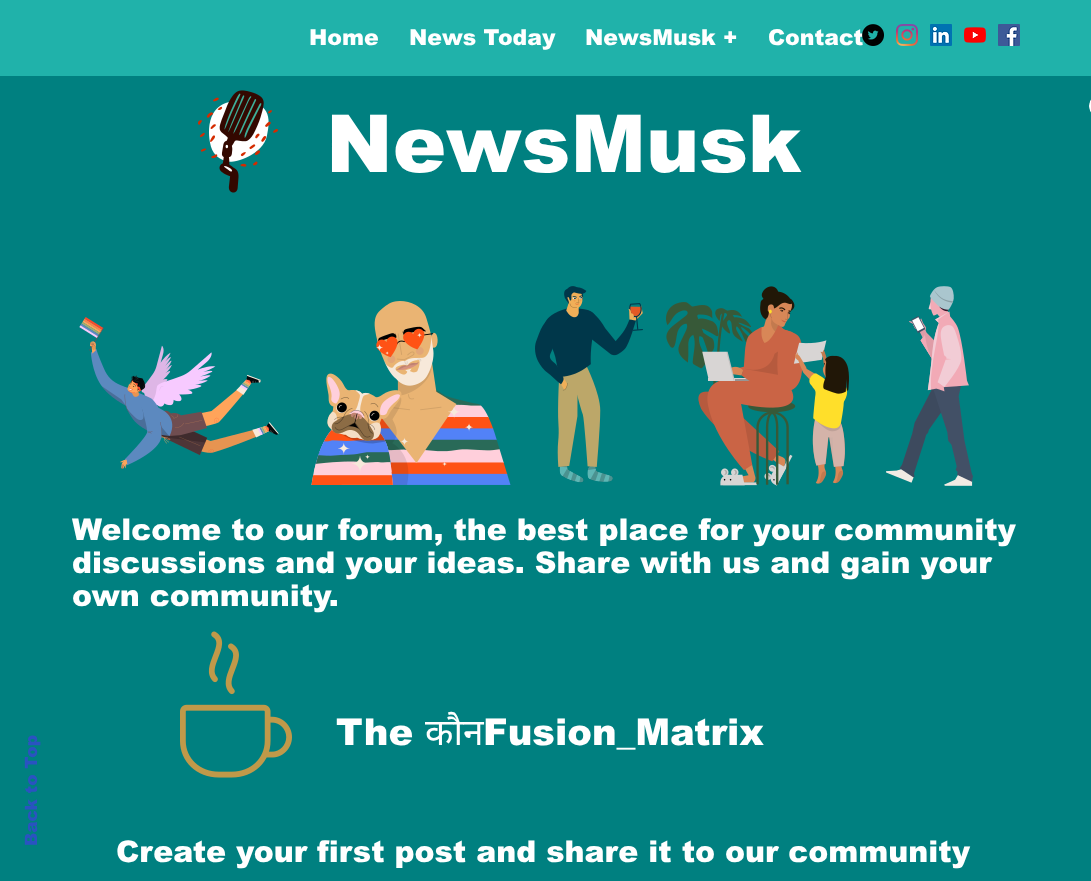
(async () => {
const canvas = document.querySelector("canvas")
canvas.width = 1091
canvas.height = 881
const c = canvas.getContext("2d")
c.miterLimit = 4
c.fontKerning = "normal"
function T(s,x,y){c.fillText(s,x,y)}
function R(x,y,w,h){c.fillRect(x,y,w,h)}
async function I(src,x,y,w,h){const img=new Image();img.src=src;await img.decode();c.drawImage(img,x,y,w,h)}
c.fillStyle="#008080"
R(0,0,1091,881)
c.fillStyle="#20b2aa"
R(0,0,1091,76)
c.font="900 22px arial"
c.fillStyle="#fff"
T("Home",309,45)
T("News Today",409,45)
T("NewsMusk +",585,45)
T("Contact",768,45)
await I("1.png",862,24,22,22)
await I("2.png",896,24,22,22)
await I("3.png",930,24,22,22)
await I("4.png",964,27,22,16)
await I("5.png",998,24,22,22)
await I("6.png",198,90,80,103)
await I("7.png",1089,99,2,14)
c.font="900 80px arial"
T("NewsMusk",326,172)
c.font="900 17px arial"
c.fillStyle="#2a53c1"
c.save()
c.translate(37,846)
c.rotate(-90 * Math.PI / 180)
c.fillText("Back to Top",0,0)
c.restore()
await I("8.png",79,317,200,152)
await I("9.png",311,301,200,184)
await I("10.png",535,286,108,197)
await I("11.png",666,286,183,200)
await I("12.png",886,286,87,200)
c.font="900 30px arial"
c.fillStyle="#fff"
T("Welcome to our forum, the best place for your community",72,540)
T("discussions and your ideas. Share with us and gain your",72,573)
T("own community.",72,606)
await I("13.png",180,631,112,147)
c.font="900 37px arial"
T("The",336,745)
c.font="37px Noto Sans"
T("कौन",425,745)
c.font="900 37px arial"
T("Fusion_Matrix",483,745)
c.font="900 30px arial"
T("Create your first post and share it to our community",116,862)
})()
